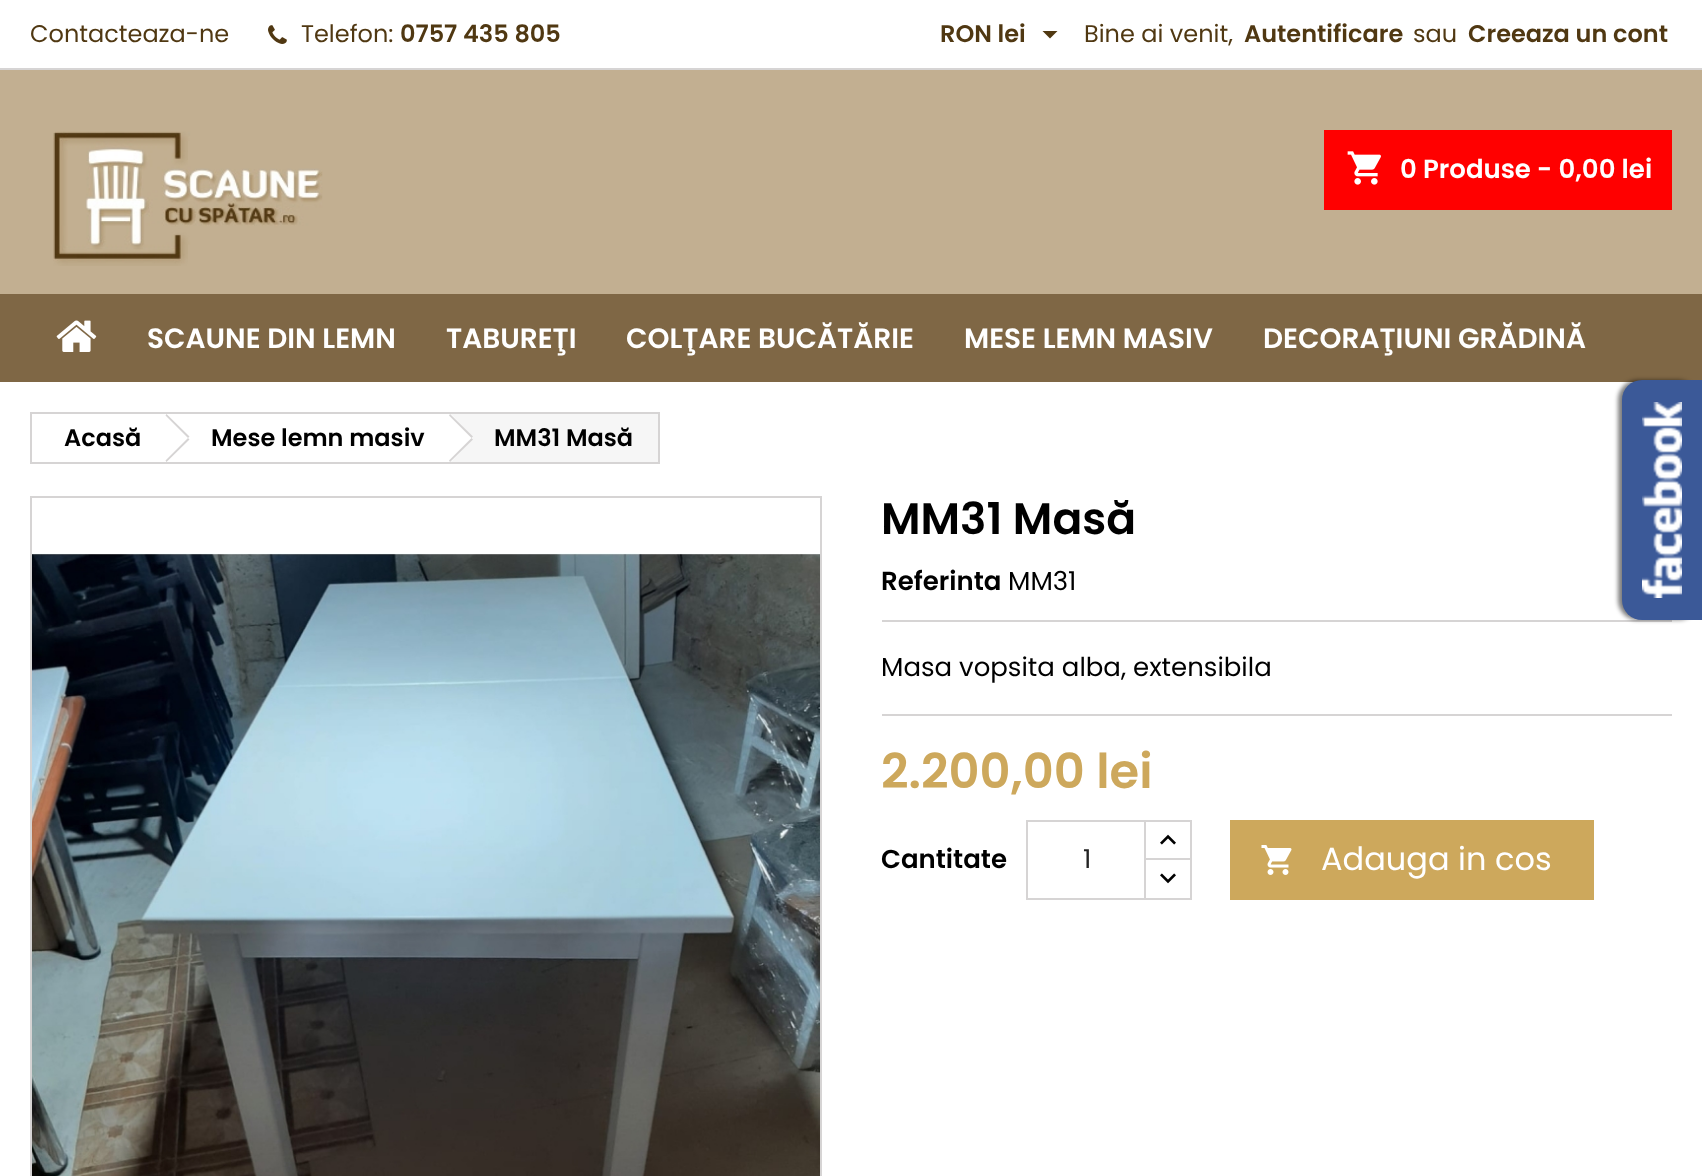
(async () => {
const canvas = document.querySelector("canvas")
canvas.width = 1702
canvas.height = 1176
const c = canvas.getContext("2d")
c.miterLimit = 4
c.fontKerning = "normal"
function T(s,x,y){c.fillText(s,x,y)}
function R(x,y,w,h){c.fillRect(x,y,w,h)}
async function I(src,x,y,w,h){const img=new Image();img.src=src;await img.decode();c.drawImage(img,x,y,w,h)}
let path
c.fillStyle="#fff"
R(0,0,1702,1176)
c.fillStyle="#d6d4d4"
R(0,68,1702,2)
c.font="24px Poppins"
c.fillStyle="#503812"
T("Contacteaza-ne",30,42)
await I("1.png",268,25,19,19)
T("Telefon:",301,42)
c.font="600 24px Poppins"
T("0757 435 805",400,42)
T("RON lei",940,42)
path = new Path2D("M1042.5 31h15l-7.5 7.5z")
c.fill(path)
c.font="24px Poppins"
T("Bine ai venit,",1084,42)
c.font="600 24px Poppins"
T("Autentificare",1244,42)
c.font="24px Poppins"
T("sau",1413,42)
c.font="600 24px Poppins"
T("Creeaza un cont",1468,42)
c.fillStyle="#c2af91"
R(0,70,1702,224)
await I("2.png",53,131,270,135)
c.fillStyle="#f00"
R(1324,130,348,80)
await I("3.png",1347,151,34,34)
c.font="600 26px Poppins"
c.fillStyle="#fff"
T("0 Produse - 0,00 lei",1400,178)
c.fillStyle="#7f6745"
R(0,294,1702,88)
await I("4.png",56,320,41,32)
c.font="600 28px Poppins"
c.fillStyle="#fff"
T("SCAUNE DIN LEMN",147,348)
T("TABUREŢI",446,348)
T("COLŢARE BUCĂTĂRIE",626,348)
T("MESE LEMN MASIV",964,348)
T("DECORAŢIUNI GRĂDINĂ",1263,348)
c.strokeStyle="#d6d4d4"
c.lineWidth=2
c.strokeRect(31,413,628,50)
c.font="600 24px Poppins"
c.fillStyle="#000"
T("Acasă",64,446)
c.fillStyle="#d6d4d4"
path = new Path2D("M166.5 414l23 22.5l-1.5 1.5l-22.5-22.5zm21.5 24l1.5 1.5l-23 22.5l-1-1.5z")
c.fill(path)
c.fillStyle="#000"
T("Mese lemn masiv",211,446)
c.fillStyle="#f6f6f6"
R(450,414,208,48)
c.fillStyle="#fff"
path = new Path2D("M452 415l19 20c2 2 2 4 0 6l-19 20c-2 1-5 1-6 0l-20-20c-1-2-1-4 0-6l20-20c1-1 4-1 6 0z")
c.fill(path)
c.fillStyle="#d6d4d4"
path = new Path2D("M450 414l23 22.5l-1.5 1.5l-22.5-22.5zm21.5 24l1.5 1.5l-23 22.5l-1-1.5z")
c.fill(path)
c.fillStyle="#000"
T("MM31 Masă",494,446)
c.strokeRect(31,497,790,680)
await I("5.png",32,553,788,623)
c.font="600 44px Poppins"
T("MM31 Masă",881,534)
c.font="600 26px Poppins"
T("Referinta",881,590)
c.font="26px Poppins"
T("MM31",1008,590)
c.fillStyle="#d6d4d4"
R(882,620,790,2)
c.fillStyle="#000"
T("Masa vopsita alba, extensibila",881,676)
c.fillStyle="#d6d4d4"
R(882,714,790,2)
c.font="600 48px Poppins"
c.fillStyle="#cda85c"
T("2.200,00 lei",881,788)
c.font="600 26px Poppins"
c.fillStyle="#000"
T("Cantitate",881,868)
c.strokeRect(1145,821,46,40)
c.fillStyle="#fff"
R(1146,860,44,2)
c.strokeRect(1145,859,46,40)
c.strokeRect(1027,821,118,78)
c.font="26px Poppins"
c.fillStyle="#232323"
T("1",1083,868)
await I("6.png",1160,834,16,11)
await I("7.png",1160,873,16,11)
c.fillStyle="#cda85c"
R(1230,820,364,80)
await I("8.png",1261,845,31,30)
c.font="32px Poppins"
c.fillStyle="#fff"
T("Adauga in cos",1321,870)
c.fillStyle="#00000080"
c.filter="blur(2px)"
c.beginPath()
c.roundRect(1618,380,80,240,20)
c.fill()
c.filter="none"
c.fillStyle="#3b5998"
c.beginPath()
c.roundRect(1622,380,80,240,[20,0,0,20])
c.fill()
await I("9.png",1642,402,40,196)
})()
